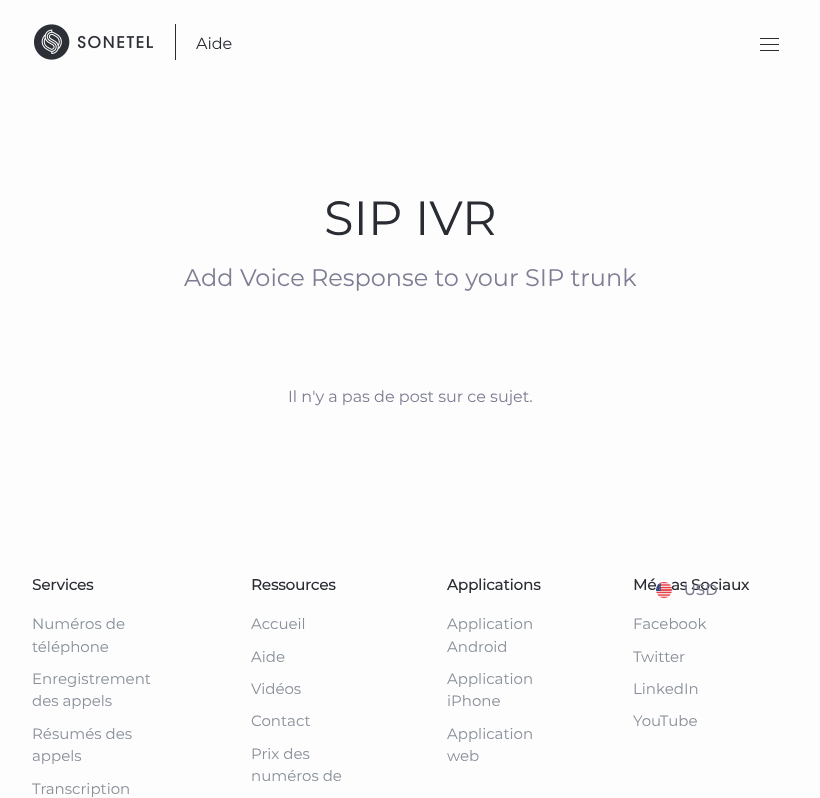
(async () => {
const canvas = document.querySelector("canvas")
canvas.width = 820
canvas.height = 798
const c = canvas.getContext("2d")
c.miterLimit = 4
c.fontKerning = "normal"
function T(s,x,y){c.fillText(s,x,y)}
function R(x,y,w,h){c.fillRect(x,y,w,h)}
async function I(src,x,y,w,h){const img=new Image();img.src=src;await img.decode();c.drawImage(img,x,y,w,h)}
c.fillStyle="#fdfdfd"
R(0,0,820,798)
await I("1.png",34,24,119,36)
c.fillStyle="#292d33"
R(175,24,1,36)
c.font="16px Montserrat"
T("Aide",196,49)
R(760,38,19,1)
R(760,44,19,1)
R(760,50,19,1)
c.font="48px Montserrat"
T("SIP IVR",324,235)
c.font="24px Montserrat"
c.fillStyle="#7d7d93"
T("Add Voice Response to your SIP trunk",184,286)
c.font="16px Montserrat"
T("Il n'y a pas de post sur ce sujet.",288,402)
c.font="bold 15px Montserrat"
c.fillStyle="#292d33"
T("Services",32,590)
c.font="15px Montserrat"
c.fillStyle="#888f99"
T("Numéros de",32,629)
T("téléphone",32,652)
T("Enregistrement",32,684)
T("des appels",32,706)
T("Résumés des",32,739)
T("appels",32,761)
T("Transcription",32,794)
c.font="bold 15px Montserrat"
c.fillStyle="#292d33"
T("Ressources",251,590)
c.font="15px Montserrat"
c.fillStyle="#888f99"
T("Accueil",251,629)
T("Aide",251,662)
T("Vidéos",251,694)
T("Contact",251,726)
T("Prix des",251,759)
T("numéros de",251,781)
c.font="bold 15px Montserrat"
c.fillStyle="#292d33"
T("Applications",447,590)
c.font="15px Montserrat"
c.fillStyle="#888f99"
T("Application",447,629)
T("Android",447,652)
T("Application",447,684)
T("iPhone",447,706)
T("Application",447,739)
T("web",447,761)
c.font="bold 15px Montserrat"
c.fillStyle="#292d33"
T("Mé",633,590)
T("as Sociaux",671,590)
c.font="15px Montserrat"
c.fillStyle="#888f99"
T("Facebook",633,629)
T("Twitter",633,662)
T("LinkedIn",633,694)
T("YouTube",633,726)
await I("2.png",656,582,16,16)
c.font="500 15px Montserrat"
c.fillStyle="#7d7d93"
T("USD",684,595)
})()
